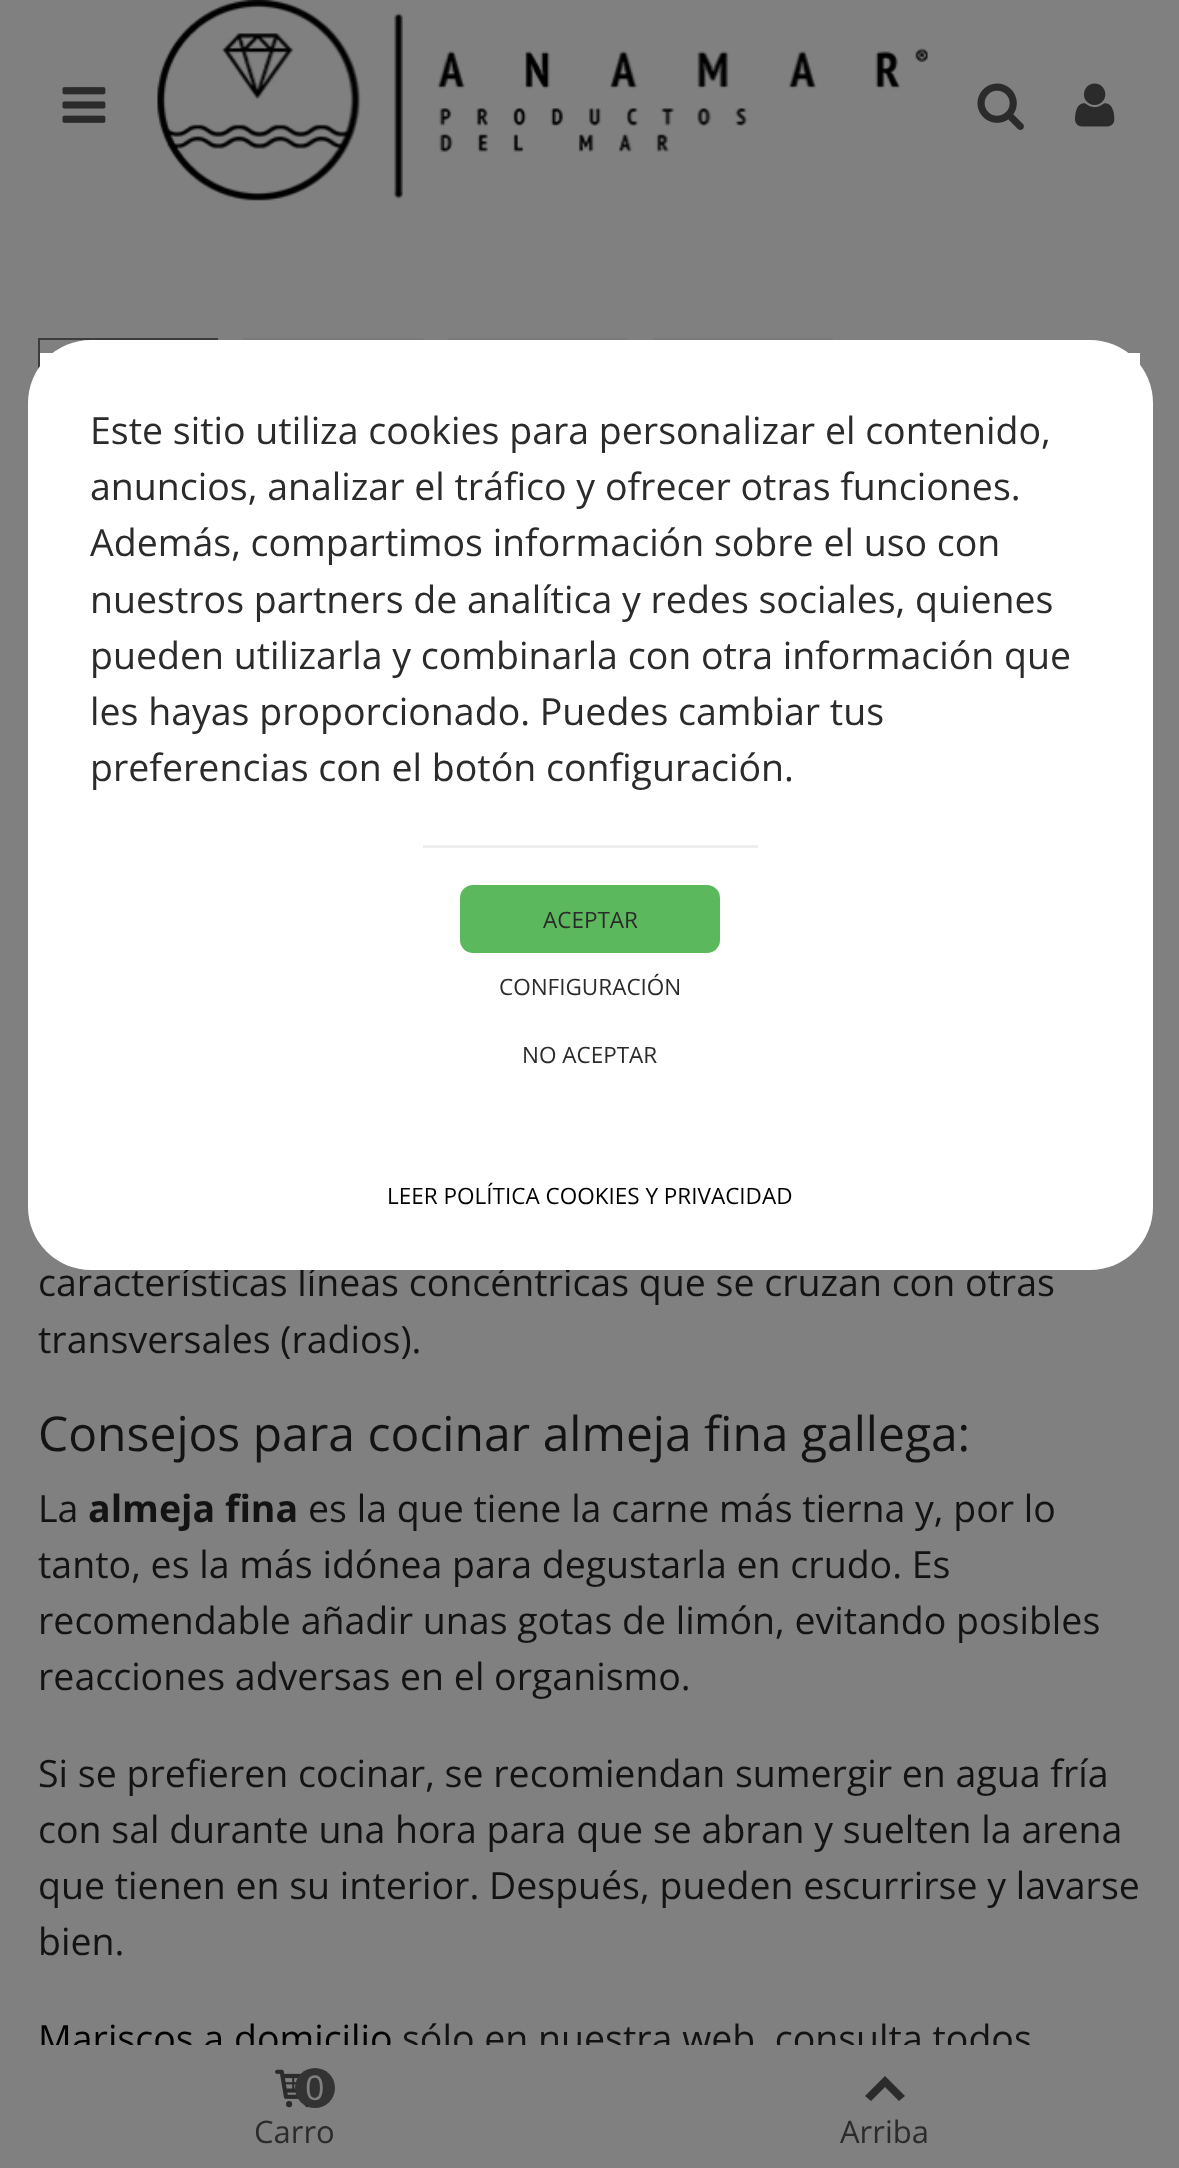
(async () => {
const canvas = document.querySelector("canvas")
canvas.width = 1179
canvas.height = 2168
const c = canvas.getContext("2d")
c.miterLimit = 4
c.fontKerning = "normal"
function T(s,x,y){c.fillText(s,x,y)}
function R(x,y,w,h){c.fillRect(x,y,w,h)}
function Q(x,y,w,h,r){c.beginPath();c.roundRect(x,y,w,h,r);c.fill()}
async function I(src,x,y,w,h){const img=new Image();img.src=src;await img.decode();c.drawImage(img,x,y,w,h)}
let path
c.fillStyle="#808080"
R(0,0,1179,2168)
c.strokeStyle="#3c3c3c"
c.lineWidth=3
c.strokeRect(39.5,339.5,177,202)
await I("5.png",40,340,50,13)
c.strokeStyle="#797979"
c.strokeRect(244.5,339.5,177,202)
c.strokeRect(449.5,339.5,177,202)
c.strokeRect(654.5,339.5,177,202)
c.font="37.5px Open Sans"
c.fillStyle="#131313"
T("características líneas concéntricas que se cruzan con otras",38,1296)
c.fillStyle="#fff"
Q(28,340,1125,930,63)
R(40,353,1100,13)
c.fillStyle="#2b2b2b"
T("Este sitio utiliza cookies para personalizar el contenido,",90,444)
T("anuncios, analizar el tráfico y ofrecer otras funciones.",90,500)
T("Además, compartimos información sobre el uso con",90,556)
T("nuestros partners de analítica y redes sociales, quienes",90,613)
T("pueden utilizarla y combinarla con otra información que",90,669)
T("les hayas proporcionado. Puedes cambiar tus",90,725)
T("preferencias con el botón configuración.",90,781)
c.fillStyle="#eceeef"
R(423,845,335,3)
c.fillStyle="#5cb85c"
Q(460,885,260,68,13)
c.font="22.5px Open Sans"
c.fillStyle="#2b2b2b"
T("ACEPTAR",543,928)
T("CONFIGURACIÓN",499,995)
T("NO ACEPTAR",522,1063)
c.fillStyle="#000"
T("LEER POLÍTICA COOKIES Y PRIVACIDAD",387,1204)
await I("1.png",62,87,44,36)
await I("2.png",157,0,771,201)
await I("3.png",977,83,47,47)
await I("4.png",1075,83,40,44)
c.font="37.5px Open Sans"
c.fillStyle="#131313"
T("transversales (radios).",38,1353)
c.font="48px Open Sans"
T("Consejos para cocinar almeja fina gallega:",38,1451)
c.font="37.5px Open Sans"
T("La",38,1522)
c.font="bold 37.5px Open Sans"
T("almeja fina",88,1522)
c.font="37.5px Open Sans"
T("es la que tiene la carne más tierna y, por lo",308,1522)
T("tanto, es la más idónea para degustarla en crudo. Es",38,1578)
T("recomendable añadir unas gotas de limón, evitando posibles",38,1634)
T("reacciones adversas en el organismo.",38,1690)
T("Si se prefieren cocinar, se recomiendan sumergir en agua fría",38,1787)
T("con sal durante una hora para que se abran y suelten la arena",38,1843)
T("que tienen en su interior. Después, pueden escurrirse y lavarse",38,1899)
T("bien.",38,1955)
c.fillStyle="#000"
T("Mariscos a domicilio",38,2052)
c.fillStyle="#131313"
T("sólo en nuestra web, consulta todos",402,2052)
c.fillStyle="#808080"
R(41,2045,549,8)
await I("6.png",275,2069,34,39)
c.fillStyle="#333"
c.beginPath()
c.arc(315,2088,20,0,7)
c.fill()
c.font="34px Open Sans"
c.fillStyle="#808080"
T("0",305,2100)
c.font="31px Open Sans"
c.fillStyle="#2b2b2b"
T("Carro",254,2143)
c.fillStyle="#808080"
R(590,2045,440,12)
c.fillStyle="#2b2b2b"
path = new Path2D("M865 2096l20-20l20 20l-6 5l-14-14l-14 14z")
c.fill(path)
T("Arriba",840,2143)
})()
